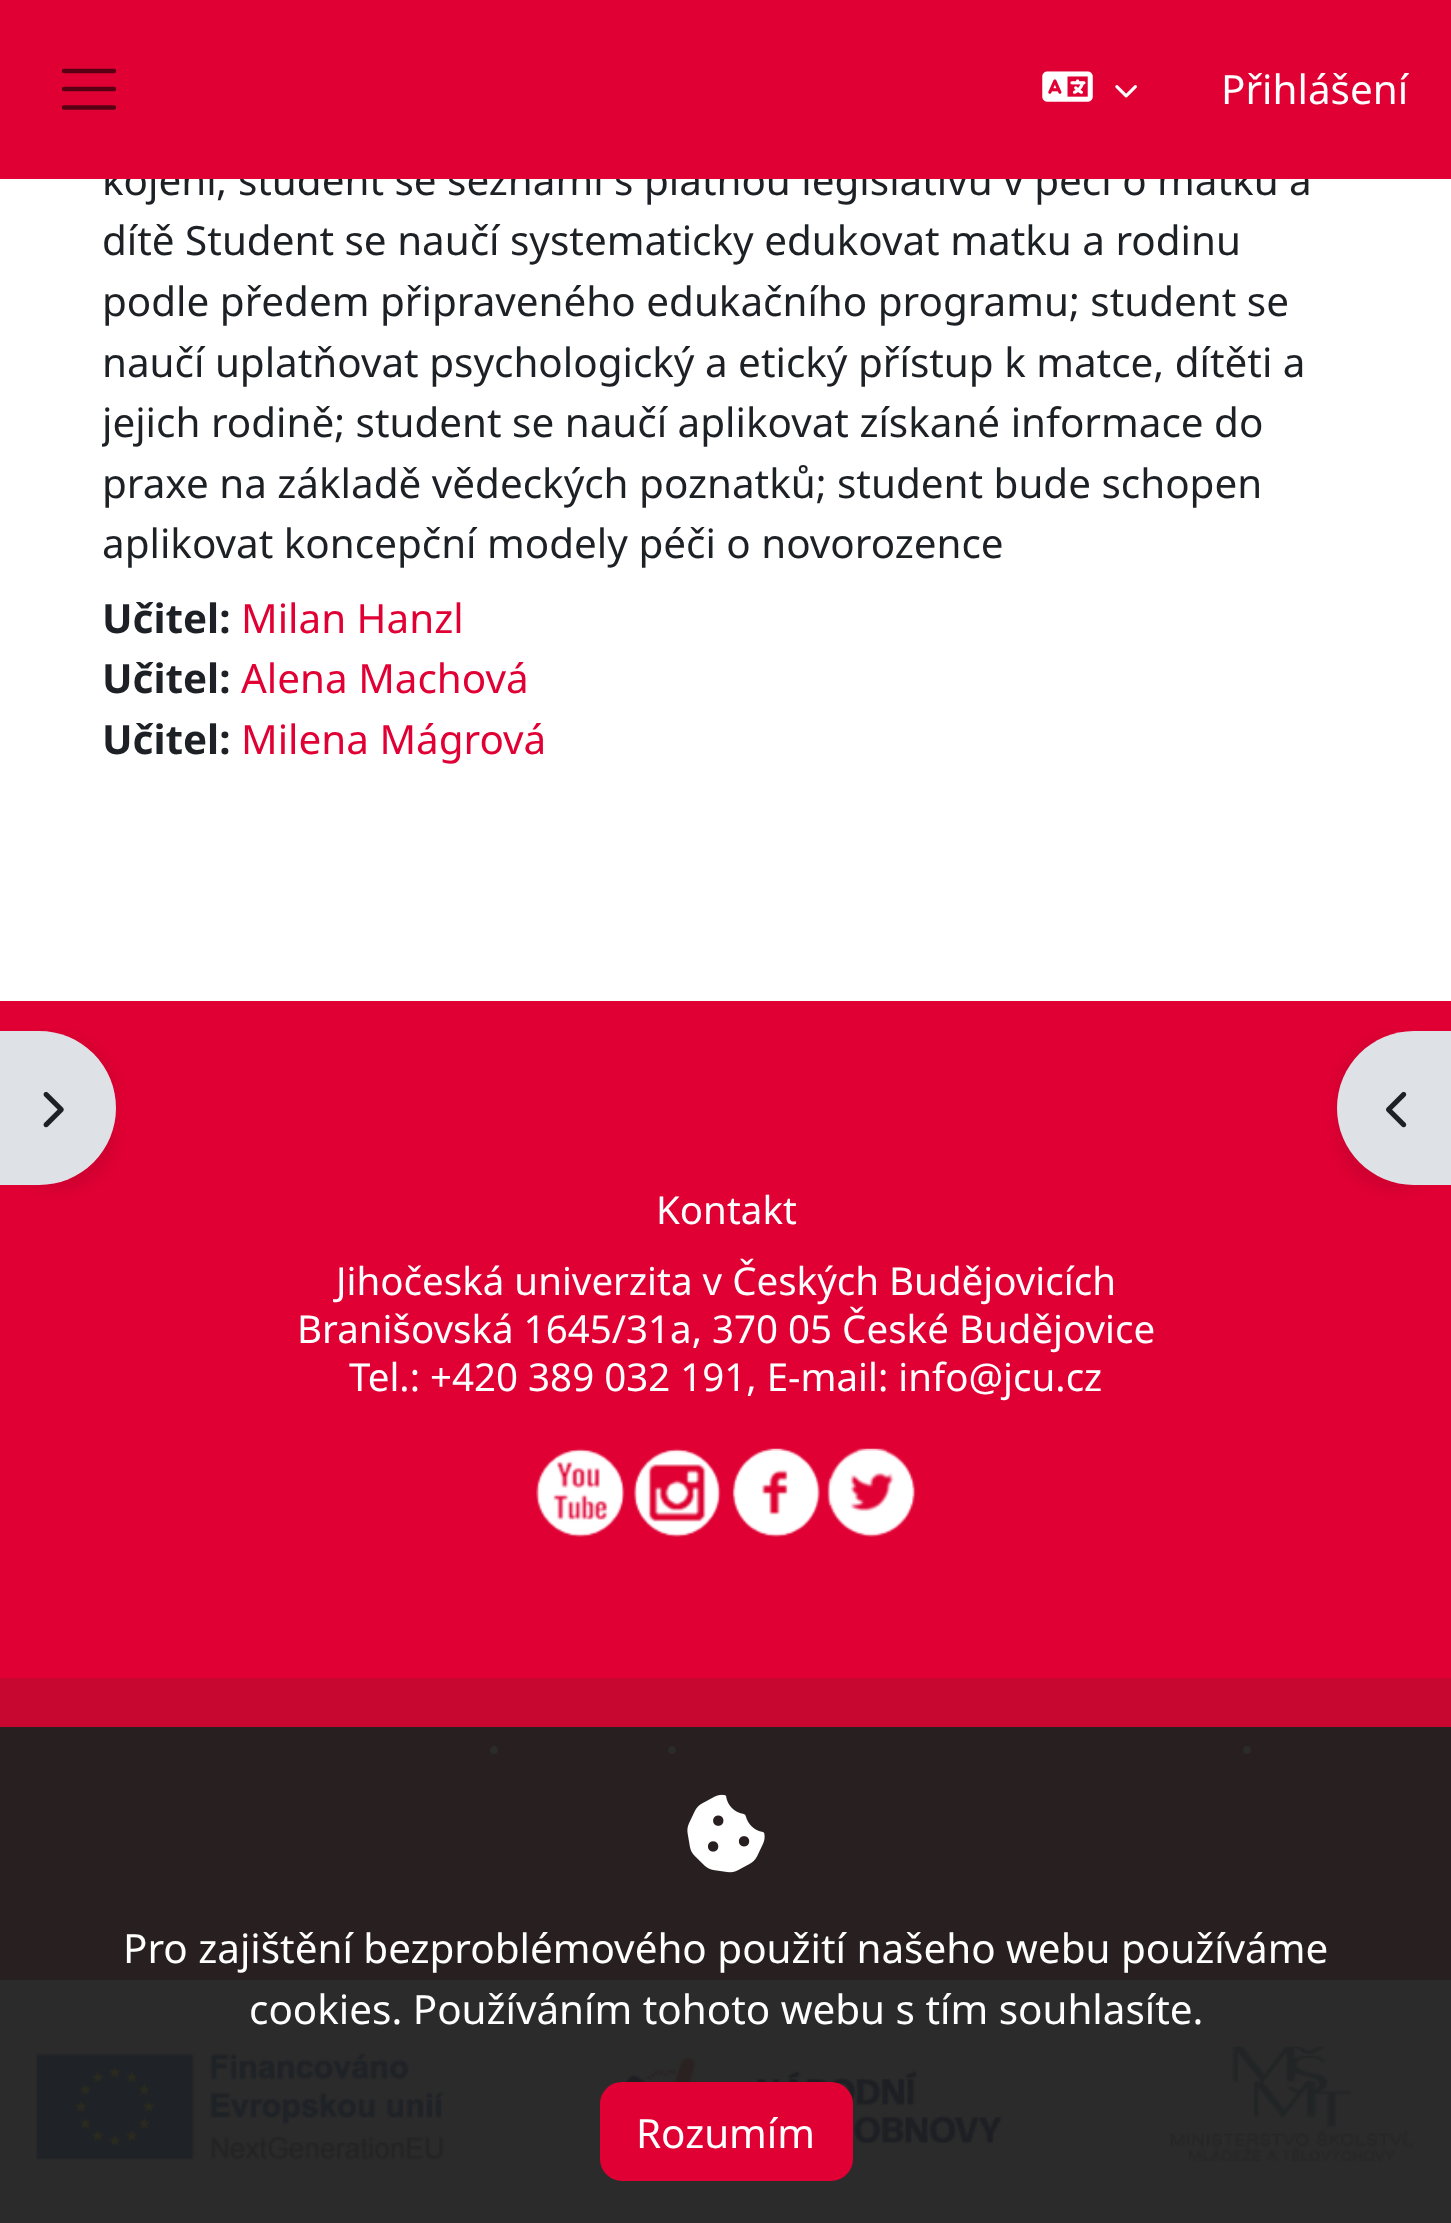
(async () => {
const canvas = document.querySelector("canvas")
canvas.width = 1451
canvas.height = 2223
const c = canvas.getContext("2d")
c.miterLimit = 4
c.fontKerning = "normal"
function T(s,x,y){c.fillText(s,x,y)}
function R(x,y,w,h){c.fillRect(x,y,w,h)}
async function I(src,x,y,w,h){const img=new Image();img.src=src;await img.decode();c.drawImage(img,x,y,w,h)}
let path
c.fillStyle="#fff"
R(0,0,1451,2223)
c.font="40.4px Noto Sans"
c.fillStyle="#1d2125"
T("kojení; student se seznámí s platnou legislativu v péči o matku a",102,195)
c.fillStyle="#e00034"
R(0,0,1451,179)
path = new Path2D("M64 71h50m-50 18h50m-50 18.5h50")
c.strokeStyle="#5a0015"
c.lineWidth=4.5
c.lineCap="round"
c.stroke(path)
await I("1.png",1042,71,51,31)
await I("2.png",1115,85,22,13)
c.fillStyle="#fff"
T("Přihlášení",1221,104)
c.fillStyle="#1d2125"
T("dítě Student se naučí systematicky edukovat matku a rodinu",102,255)
T("podle předem připraveného edukačního programu; student se",102,316)
T("naučí uplatňovat psychologický a etický přístup k matce, dítěti a",102,377)
c.save()
c.beginPath()
c.rect(102,0,1248,572)
c.clip()
T("jejich rodině; student se naučí aplikovat získané informace do",102,437)
c.restore()
T("praxe na základě vědeckých poznatků; student bude schopen",102,498)
T("aplikovat koncepční modely péči o novorozence",102,558)
c.font="bold 40.4px Noto Sans"
T("Učitel:",102,633)
c.font="40.4px Noto Sans"
c.fillStyle="#e00034"
T("Milan Hanzl",241,633)
c.font="bold 40.4px Noto Sans"
c.fillStyle="#1d2125"
T("Učitel:",102,693)
c.font="40.4px Noto Sans"
c.fillStyle="#e00034"
T("Alena Machová",241,693)
c.font="bold 40.4px Noto Sans"
c.fillStyle="#1d2125"
T("Učitel:",102,754)
c.font="40.4px Noto Sans"
c.fillStyle="#e00034"
T("Milena Mágrová",241,754)
R(0,1001,1451,677)
c.fillStyle="#00000012"
c.filter="blur(5.5px)"
c.beginPath()
c.roundRect(0,1037,116,154,77)
c.fill()
c.filter="none"
c.fillStyle="#dee2e6"
c.beginPath()
c.roundRect(0,1031,116,154,[0,77,77,0])
c.fill()
await I("3.png",43,1091,21,37)
c.fillStyle="#00000012"
c.filter="blur(5.5px)"
c.beginPath()
c.roundRect(1337,1037,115,154,77)
c.fill()
c.filter="none"
c.fillStyle="#dee2e6"
path = new Path2D("M1414 1031h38v154h-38c-42.5 0-77-34.5-77-77c0-42.5 34.5-77 77-77z")
c.fill(path)
await I("4.png",1386,1091,21,37)
c.font="38.5px Noto Sans"
c.fillStyle="#fff"
T("Kontakt",656,1224)
T("Jihočeská univerzita v Českých Budějovicích",336,1295)
T("Branišovská 1645/31a, 370 05 České Budějovice",297,1343)
T("Tel.: +420 389 032 191, E-mail: info@jcu.cz",349,1391)
await I("5.png",536,1448,89,89)
await I("6.png",633,1448,88,89)
await I("7.png",732,1448,88,89)
await I("8.png",827,1448,89,89)
c.fillStyle="#c70730"
R(0,1678,1451,49)
c.fillStyle="#281f21"
R(0,1727,1451,253)
c.fillStyle="#2b2b2b"
c.beginPath()
c.arc(494,1750,4,0,7)
c.fill()
c.beginPath()
c.arc(672,1750,4,0,7)
c.fill()
c.beginPath()
c.arc(1247,1750,4,0,7)
c.fill()
R(0,1980,1451,243)
await I("9.png",36,2046,1377,116)
await I("10.png",687,1794,78,79)
c.font="40.4px Noto Sans"
c.fillStyle="#fff"
T("Pro zajištění bezproblémového použití našeho webu používáme",123,1963)
T("cookies. Používáním tohoto webu s tím souhlasíte.",249,2024)
c.fillStyle="#e00034"
c.beginPath()
c.roundRect(601.5,2083.5,250,96,20.5)
c.fill()
c.strokeStyle="#e00034"
c.lineWidth=3
c.stroke()
c.fillStyle="#fff"
T("Rozumím",636,2148)
})()
